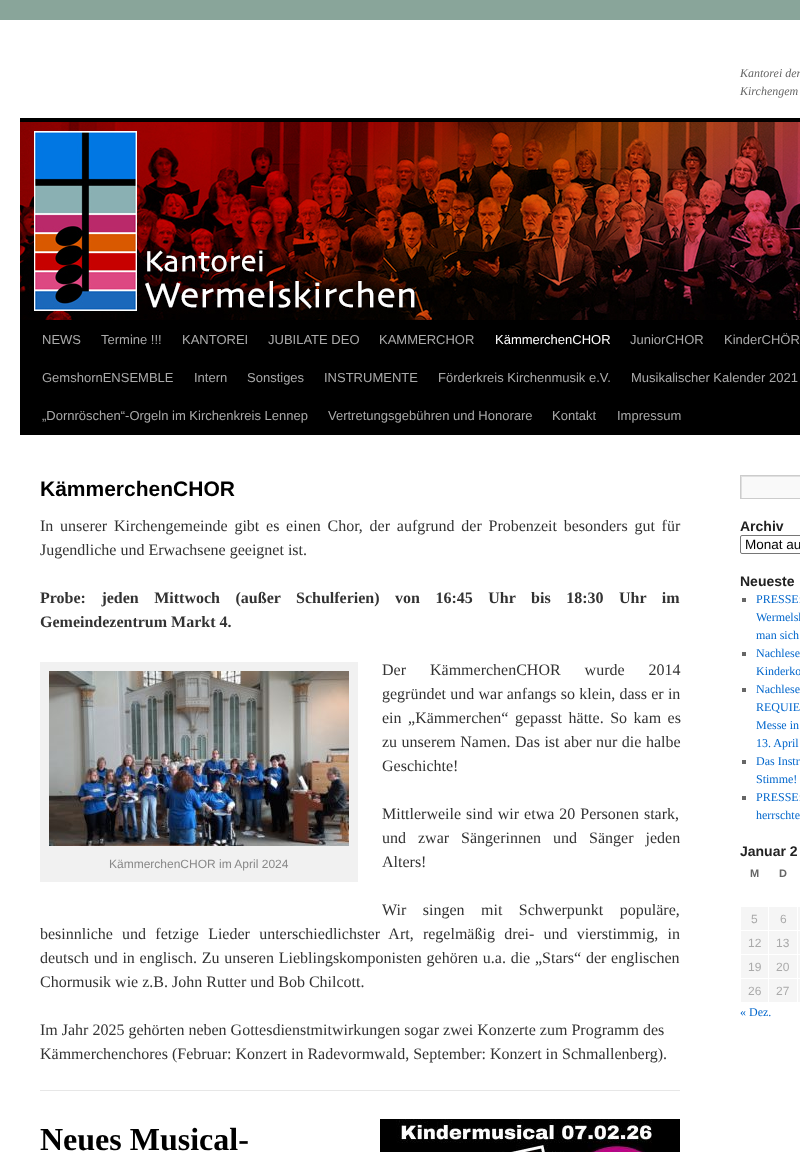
(async () => {
const canvas = document.querySelector("canvas")
canvas.width = 800
canvas.height = 1152
const c = canvas.getContext("2d")
c.miterLimit = 4
c.fontKerning = "normal"
function T(s,x,y){c.fillText(s,x,y)}
function R(x,y,w,h){c.fillRect(x,y,w,h)}
async function I(src,x,y,w,h){const img=new Image();img.src=src;await img.decode();c.drawImage(img,x,y,w,h)}
let path
c.fillStyle="#89a59a"
R(0,0,800,1152)
c.fillStyle="#fff"
R(0,20,800,1132)
c.font="italic 12px Liberation Serif"
c.fillStyle="#666"
T("Kantorei der",740,77)
T("Kirchengem",740,95)
c.fillStyle="#000"
R(20,118,780,4)
R(20,320,780,115)
await I("1.png",20,122,780,198)
c.font="13px Liberation Sans"
c.fillStyle="#aaa"
T("NEWS",42,344)
T("Termine !!!",101,344)
T("KANTOREI",182,344)
T("JUBILATE DEO",268,344)
T("KAMMERCHOR",379,344)
c.fillStyle="#fff"
T("KämmerchenCHOR",495,344)
c.fillStyle="#aaa"
T("JuniorCHOR",630,344)
T("KinderCHÖR",724,344)
T("GemshornENSEMBLE",42,382)
T("Intern",194,382)
T("Sonstiges",247,382)
T("INSTRUMENTE",324,382)
T("Förderkreis Kirchenmusik e.V.",438,382)
T("Musikalischer Kalender 2021",631,382)
T("„Dornröschen“-Orgeln im Kirchenkreis Lennep",42,420)
T("Vertretungsgebühren und Honorare",328,420)
T("Kontakt",552,420)
T("Impressum",617,420)
c.font="bold 21px Liberation Sans"
c.fillStyle="#000"
T("KämmerchenCHOR",40,496)
c.wordSpacing="2.75px"
c.font="16px Liberation Serif"
c.fillStyle="#333"
T("In unserer Kirchengemeinde gibt es einen Chor, der aufgrund der Probenzeit besonders gut für",40,531)
c.wordSpacing="0px"
T("Jugendliche und Erwachsene geeignet ist.",40,555)
c.wordSpacing="11.5px"
c.font="bold 16px Liberation Serif"
T("Probe: jeden Mittwoch (außer Schulferien) von 16:45 Uhr bis 18:30 Uhr im",40,603)
c.wordSpacing="0px"
T("Gemeindezentrum Markt 4.",40,627)
c.wordSpacing="20px"
c.font="16px Liberation Serif"
T("Der KämmerchenCHOR wurde 2014",382,675)
c.wordSpacing="0.25px"
T("gegründet und war anfangs so klein, dass er in",382,699)
c.wordSpacing="2.5px"
T("ein „Kämmerchen“ gepasst hätte. So kam es",382,723)
c.wordSpacing="0.5px"
T("zu unserem Namen. Das ist aber nur die halbe",382,747)
c.wordSpacing="0px"
T("Geschichte!",382,771)
c.fillStyle="#f1f1f1"
R(40,662,318,220)
await I("2.png",49,671,300,175)
c.font="12px Liberation Sans"
c.fillStyle="#888"
T("KämmerchenCHOR im April 2024",109,868)
c.wordSpacing="1px"
c.font="16px Liberation Serif"
c.fillStyle="#333"
T("Mittlerweile sind wir etwa 20 Personen stark,",382,819)
c.wordSpacing="8px"
T("und zwar Sängerinnen und Sänger jeden",382,843)
c.wordSpacing="0px"
T("Alters!",382,867)
c.wordSpacing="12.5px"
T("Wir singen mit Schwerpunkt populäre,",382,915)
c.wordSpacing="5.25px"
T("besinnliche und fetzige Lieder unterschiedlichster Art, regelmäßig drei- und vierstimmig, in",40,939)
c.wordSpacing="0.75px"
T("deutsch und in englisch. Zu unseren Lieblingskomponisten gehören u.a. die „Stars“ der englischen",40,963)
c.wordSpacing="0px"
T("Chormusik wie z.B. John Rutter und Bob Chilcott.",40,987)
T("Im Jahr 2025 gehörten neben Gottesdienstmitwirkungen sogar zwei Konzerte zum Programm des",40,1035)
T("Kämmerchenchores (Februar: Konzert in Radevormwald, September: Konzert in Schmallenberg).",40,1059)
c.fillStyle="#e7e7e7"
R(40,1090,640,1)
c.font="bold 32px Liberation Serif"
c.fillStyle="#000"
T("Neues Musical-",40,1150)
await I("3.png",380,1119,300,33)
c.fillStyle="#f9f9f9"
R(742,477,58,21)
c.save()
c.beginPath()
c.rect(741,476,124,22)
c.clip()
c.fillStyle="#e0e0e0"
path = new Path2D("M642 377h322v220h-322zm100 100h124v22h-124z")
c.fill(path,"evenodd")
c.restore()
c.strokeStyle="#ccc"
c.strokeRect(740.5,475.5,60,23)
c.font="bold 14px Liberation Sans"
c.fillStyle="#222"
T("Archiv",740,531)
c.beginPath()
c.roundRect(740.5,535.5,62,18,1.5)
c.strokeStyle="#767676"
c.stroke()
c.font="13.5px Liberation Sans"
c.fillStyle="#000"
T("Monat au",745,549)
c.font="bold 14px Liberation Sans"
c.fillStyle="#222"
T("Neueste",740,586)
c.fillStyle="#666"
R(742,598,4,4)
c.font="12px Liberation Serif"
c.fillStyle="#06c"
T("PRESSE:",756,603)
T("Wermelsk",756,621)
T("man sich",756,639)
c.fillStyle="#666"
R(742,652,4,4)
c.fillStyle="#06c"
T("Nachlese",756,657)
T("Kinderko",756,675)
c.fillStyle="#666"
R(742,688,4,4)
c.fillStyle="#06c"
T("Nachlese",756,693)
T("REQUIE",756,711)
T("Messe in",756,729)
T("13. April",756,747)
c.fillStyle="#666"
R(742,760,4,4)
c.fillStyle="#06c"
T("Das Instr",756,765)
T("Stimme!",756,783)
c.fillStyle="#666"
R(742,796,4,4)
c.fillStyle="#06c"
T("PRESSE:",756,801)
T("herrschte",756,819)
c.font="bold 14px Liberation Sans"
c.fillStyle="#222"
T("Januar 2",740,856)
c.font="bold 11px Liberation Sans"
c.fillStyle="#666"
T("M",750,877)
T("D",779,877)
c.fillStyle="#f5f5f5"
R(741,907,27,23)
c.font="12px Liberation Sans"
c.fillStyle="#aaa"
T("5",751,923)
c.fillStyle="#f5f5f5"
R(769,907,28,23)
c.fillStyle="#aaa"
T("6",780,923)
c.fillStyle="#f5f5f5"
R(798,907,2,96)
c.fillStyle="#fff"
R(797,930,3,1)
c.fillStyle="#f5f5f5"
R(741,931,27,23)
c.fillStyle="#aaa"
T("12",748,947)
c.fillStyle="#f5f5f5"
R(769,931,28,23)
c.fillStyle="#aaa"
T("13",776,947)
c.fillStyle="#fff"
R(797,954,3,1)
c.fillStyle="#f5f5f5"
R(741,955,27,23)
c.fillStyle="#aaa"
T("19",748,971)
c.fillStyle="#f5f5f5"
R(769,955,28,23)
c.fillStyle="#aaa"
T("20",776,971)
c.fillStyle="#f5f5f5"
R(741,979,27,23)
c.fillStyle="#aaa"
T("26",748,995)
c.fillStyle="#f5f5f5"
R(769,979,28,23)
c.fillStyle="#aaa"
T("27",776,995)
c.fillStyle="#fff"
R(797,978,3,1)
R(797,1002,3,1)
c.font="12px Liberation Serif"
c.fillStyle="#06c"
T("« Dez.",740,1016)
})()
